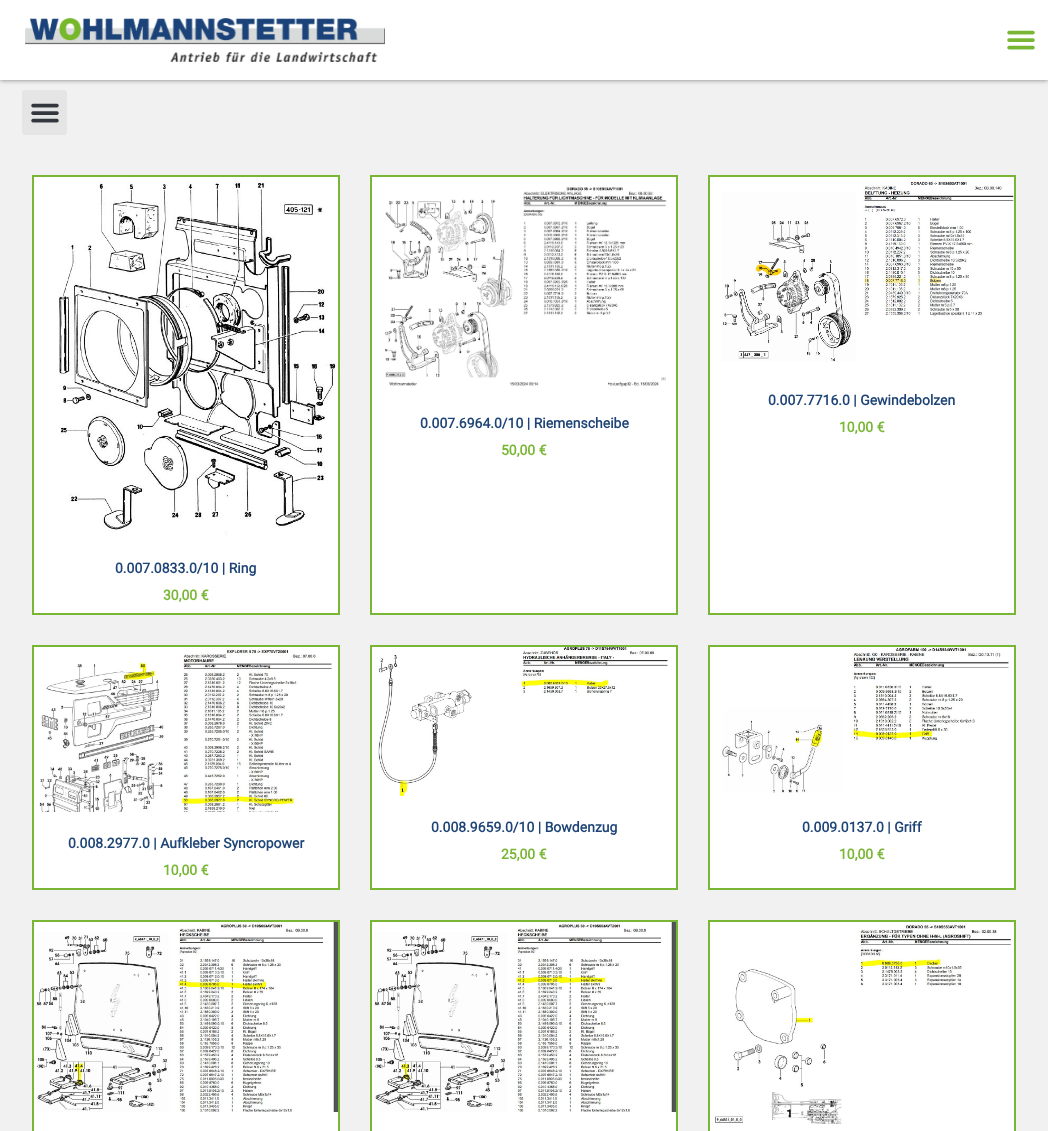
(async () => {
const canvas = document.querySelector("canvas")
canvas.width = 1048
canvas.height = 1131
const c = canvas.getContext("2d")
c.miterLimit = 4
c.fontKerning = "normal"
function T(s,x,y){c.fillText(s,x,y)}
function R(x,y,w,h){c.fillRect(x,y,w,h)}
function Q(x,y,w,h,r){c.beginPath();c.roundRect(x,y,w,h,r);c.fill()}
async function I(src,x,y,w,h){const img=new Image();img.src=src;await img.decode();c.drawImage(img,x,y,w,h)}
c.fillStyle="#fff"
R(0,0,1048,1131)
c.fillStyle="#f1f1f1"
R(0,80,1048,1051)
c.fillStyle="#00000080"
c.filter="blur(2.5px)"
c.beginPath()
c.roundRect(0,0,1048,80,1)
c.fill()
c.filter="none"
c.fillStyle="#fff"
c.beginPath()
c.roundRect(0,0,1048,80,[0,0,1,0])
c.fill()
await I("1.png",25,18,360,44)
await I("2.png",1007,30,28,20)
c.fillStyle="#e5e5e5"
Q(22,90,45,45,3)
await I("3.png",31,103,28,20)
c.fillStyle="#fff"
c.beginPath()
c.rect(371,176,306,438)
c.fill()
c.strokeStyle="#79b634"
c.lineWidth=2
c.stroke()
await I("4.png",385,187,282,200)
c.font="bold 14px Roboto"
c.fillStyle="#1f4577"
T("0.007.6964.0/10 | Riemenscheibe",420,428)
c.fillStyle="#79b634"
T("50,00 €",501,455)
c.fillStyle="#fff"
c.beginPath()
c.rect(709,176,306,438)
c.fill()
c.stroke()
await I("5.png",722,181,292,181)
c.fillStyle="#1f4577"
T("0.007.7716.0 | Gewindebolzen",768,405)
c.fillStyle="#79b634"
T("10,00 €",839,432)
c.fillStyle="#fff"
c.beginPath()
c.rect(33,176,306,438)
c.fill()
c.stroke()
await I("6.png",59,181,278,355)
c.fillStyle="#1f4577"
T("0.007.0833.0/10 | Ring",115,573)
c.fillStyle="#79b634"
T("30,00 €",163,600)
c.fillStyle="#fff"
c.beginPath()
c.rect(33,646,306,243)
c.fill()
c.stroke()
await I("7.png",39,647,293,165)
c.fillStyle="#1f4577"
T("0.008.2977.0 | Aufkleber Syncropower",68,848)
c.fillStyle="#79b634"
T("10,00 €",163,875)
c.fillStyle="#fff"
c.beginPath()
c.rect(371,646,306,243)
c.fill()
c.stroke()
await I("8.png",378,647,290,149)
c.fillStyle="#1f4577"
T("0.008.9659.0/10 | Bowdenzug",431,832)
c.fillStyle="#79b634"
T("25,00 €",501,859)
c.fillStyle="#fff"
c.beginPath()
c.rect(709,646,306,243)
c.fill()
c.stroke()
await I("9.png",722,647,287,146)
c.fillStyle="#1f4577"
T("0.009.0137.0 | Griff",802,832)
c.fillStyle="#79b634"
T("10,00 €",839,859)
c.fillStyle="#fff"
c.beginPath()
c.rect(33,921,306,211)
c.fill()
c.stroke()
await I("10.png",36,922,302,190)
c.beginPath()
c.rect(371,921,306,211)
c.fill()
c.stroke()
await I("11.png",374,922,302,190)
c.beginPath()
c.rect(709,921,306,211)
c.fill()
c.stroke()
await I("12.png",715,922,297,202)
})()
